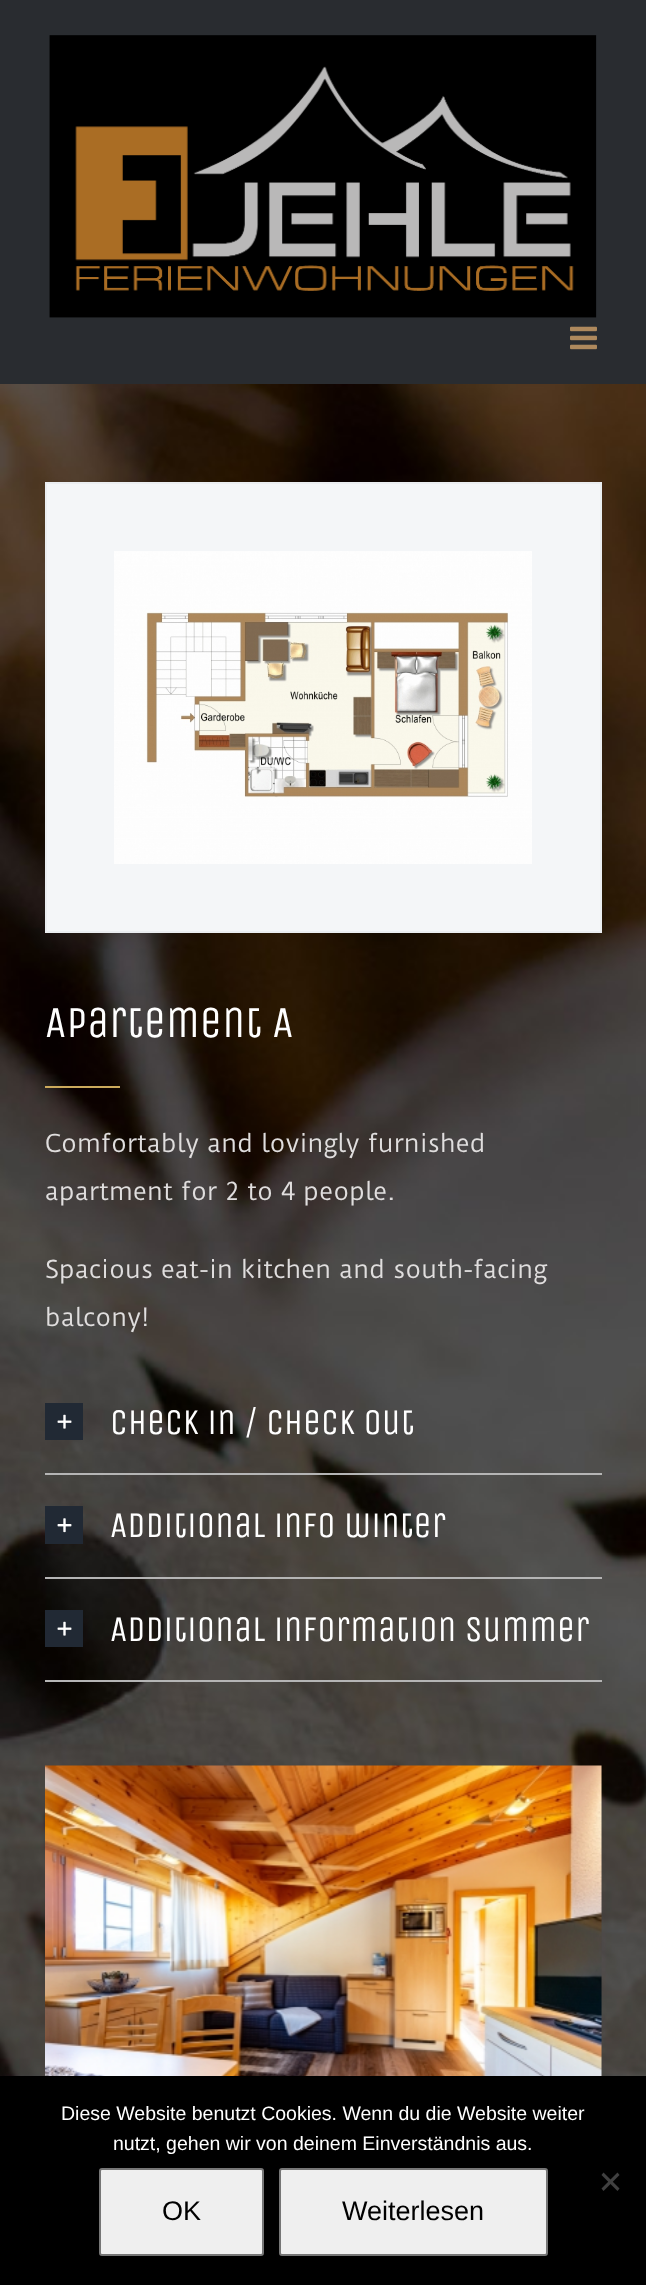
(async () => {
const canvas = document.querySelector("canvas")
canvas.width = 646
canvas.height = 2285
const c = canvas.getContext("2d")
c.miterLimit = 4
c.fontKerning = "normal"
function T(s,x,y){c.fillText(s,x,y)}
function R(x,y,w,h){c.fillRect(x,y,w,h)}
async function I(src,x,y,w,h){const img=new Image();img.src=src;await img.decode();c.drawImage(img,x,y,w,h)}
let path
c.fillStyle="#fff"
R(0,0,646,2285)
c.fillStyle="#292c30"
R(0,0,646,384)
await I("1.png",49,35,548,283)
await I("2.png",570,326,27,24)
await I("3.png",0,384,646,1692)
c.fillStyle="#f4f6f8"
c.beginPath()
c.rect(46,483,555,449)
c.fill()
c.strokeStyle="#ebeef1"
c.lineWidth=2
c.stroke()
await I("4.png",114,551,418,313)
c.font="44.25px Unica One"
c.fillStyle="#fff"
T("Apartement A",45,1037)
c.fillStyle="#cbaa5c"
R(45,1086,75,2)
c.font="24px Duru Sans"
c.fillStyle="#e0dede"
T("Comfortably and lovingly furnished",45,1152)
T("apartment for 2 to 4 people.",45,1200)
T("Spacious eat-in kitchen and south-facing",45,1278)
T("balcony!",45,1326)
c.fillStyle="#b5b5b5"
R(45,1473,557,2)
c.fillStyle="#212934"
R(45,1403,38,37)
await I("5.png",57,1414,15,15)
c.font="36px Unica One"
c.fillStyle="#fff"
T("Check in / Check out",110,1434)
c.fillStyle="#b5b5b5"
R(45,1577,557,2)
c.fillStyle="#212934"
R(45,1506,38,38)
await I("6.png",57,1518,15,15)
c.fillStyle="#fff"
T("Additional info winter",110,1537)
c.fillStyle="#b5b5b5"
R(45,1680,557,2)
c.fillStyle="#212934"
R(45,1610,38,37)
await I("5.png",57,1621,15,15)
c.fillStyle="#fff"
T("Additional information summer",110,1641)
await I("7.png",45,1765,557,311)
c.fillStyle="#000"
R(0,2076,646,209)
c.font="19.5px Liberation Sans"
c.fillStyle="#fff"
T("Diese Website benutzt Cookies. Wenn du die Website weiter",61,2120)
T("nutzt, gehen wir von deinem Einverständnis aus.",113,2150)
c.fillStyle="#404040"
path = new Path2D("M617.5 2172.5l2 2.5l-16 16l-2-2.5z")
c.fill(path)
path = new Path2D("M601.5 2175l2-2.5l16 16l-2 2.5z")
c.fill(path)
c.fillStyle="#efefef"
c.beginPath()
c.roundRect(100,2169,163,86,2)
c.fill()
c.strokeStyle="#767676"
c.stroke()
c.font="27px Liberation Sans"
c.fillStyle="#000"
T("OK",162,2220)
c.fillStyle="#efefef"
c.beginPath()
c.roundRect(280,2169,267,86,2)
c.fill()
c.stroke()
c.fillStyle="#000"
T("Weiterlesen",342,2220)
})()
